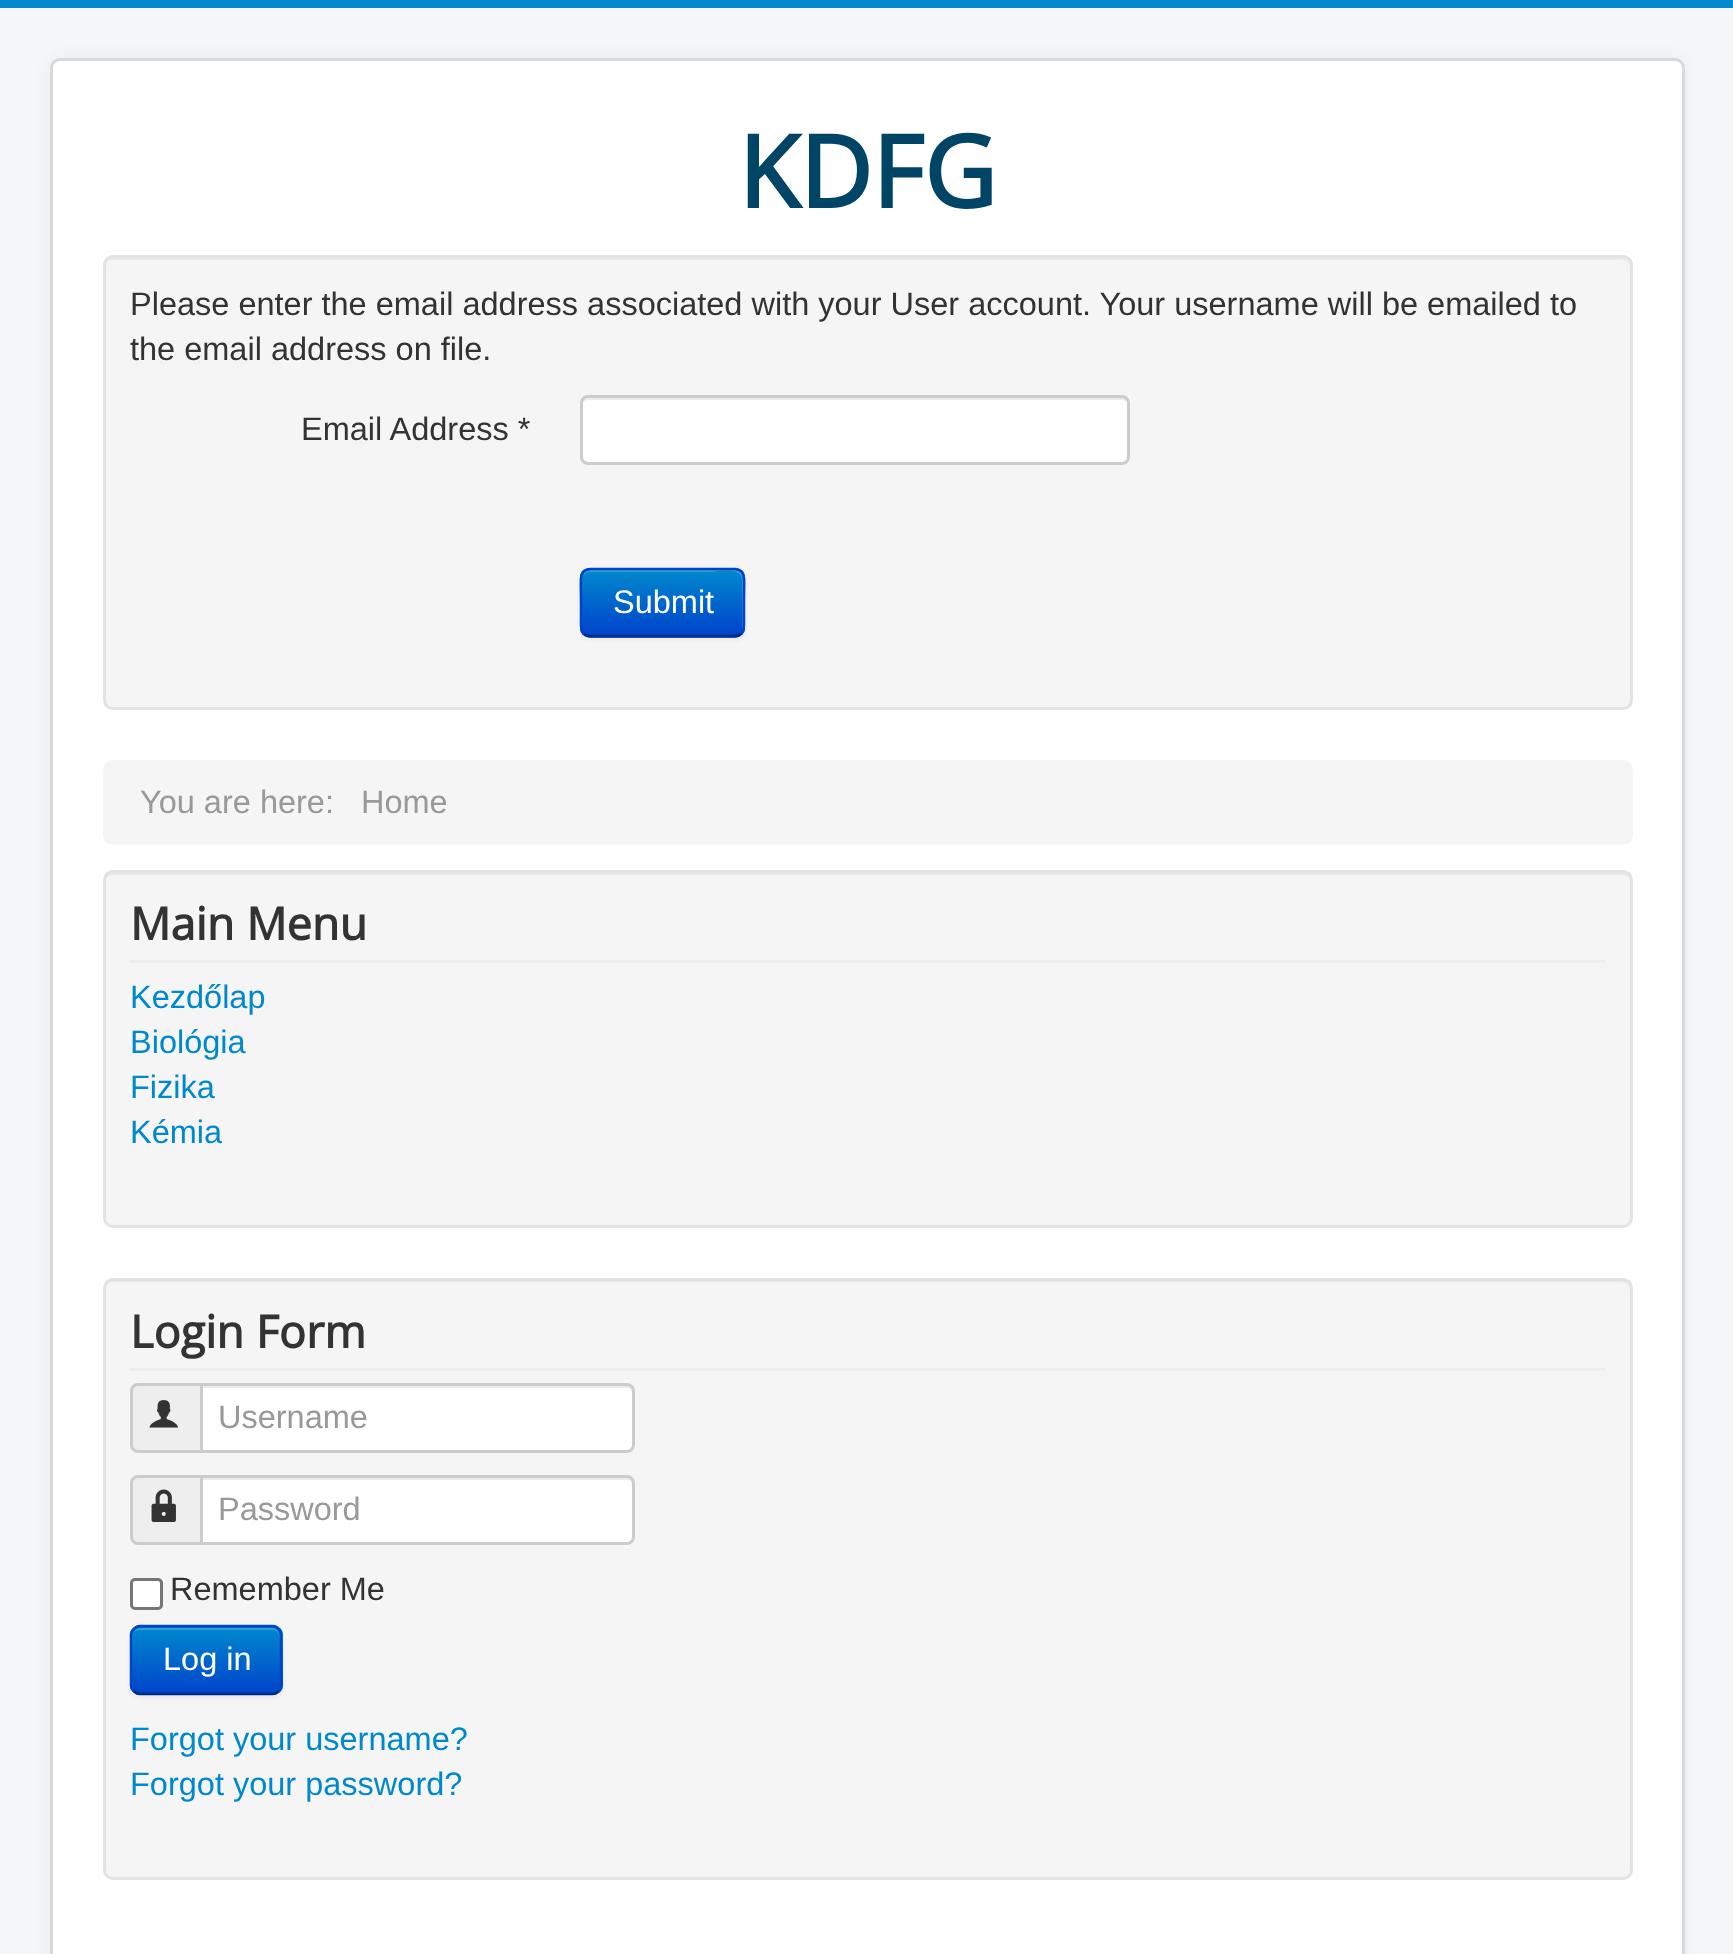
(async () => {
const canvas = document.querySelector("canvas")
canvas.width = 1733
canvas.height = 1954
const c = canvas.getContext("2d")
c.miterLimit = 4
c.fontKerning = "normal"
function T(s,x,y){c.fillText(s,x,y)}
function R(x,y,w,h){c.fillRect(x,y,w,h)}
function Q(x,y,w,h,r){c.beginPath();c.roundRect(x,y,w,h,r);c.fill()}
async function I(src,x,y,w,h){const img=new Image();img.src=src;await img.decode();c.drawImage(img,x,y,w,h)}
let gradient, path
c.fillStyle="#f4f6f7"
R(0,0,1733,1954)
c.fillStyle="#08c"
R(0,0,1733,8)
c.fillStyle="#0000000d"
c.filter="blur(7.5px)"
c.beginPath()
c.roundRect(50,58,1635,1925,10)
c.fill()
c.filter="none"
c.fillStyle="#fff"
Q(50,58,1635,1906,10)
c.beginPath()
c.roundRect(51.5,59.5,1632,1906,8.5)
c.strokeStyle="#00000026"
c.lineWidth=3
c.stroke()
c.font="bold 100px Open Sans"
c.fillStyle="#046"
T("KDFG",738,208)
c.fillStyle="#f5f5f5"
Q(103,255,1530,455,10)
c.fillStyle="#e9e9e9"
path = new Path2D("M112 260h1510c5 0 8 3 8 8v-2c0-4-4-8-8-8h-1509c-4 0-8 4-8 8v2c0-5 3-8 7-8z")
c.fill(path)
c.beginPath()
c.roundRect(104.5,256.5,1527,452,8.5)
c.strokeStyle="#e3e3e3"
c.stroke()
c.font="32.5px Liberation Sans"
c.fillStyle="#333"
T("Please enter the email address associated with your User account. Your username will be emailed to",130,315)
T("the email address on file.",130,360)
T("Email Address *",301,440)
c.fillStyle="#fff"
Q(580,395,550,70,8)
c.fillStyle="#ececec"
path = new Path2D("M588 400h534c3 0 6 2 6 5v-2c0-3-2-5-5-5h-535c-2 0-5 2-5 4c1-1 3-2 5-2z")
c.fill(path)
c.beginPath()
c.roundRect(581.5,396.5,547,67,6.5)
c.strokeStyle="#ccc"
c.stroke()
c.fillStyle="#0000000d"
c.filter="blur(2.5px)"
c.beginPath()
c.roundRect(580,570,165,70,10)
c.fill()
c.filter="none"
c.fillStyle="#006dcc"
Q(580,568,165,70,10)
c.save()
c.beginPath()
c.roundRect(580,568,165,70,10)
c.clip()
gradient = c.createLinearGradient(663,570,663,635)
gradient.addColorStop(0,"#08c")
gradient.addColorStop(1,"#04c")
c.fillStyle = gradient
R(580,570,165,65)
c.restore()
c.fillStyle="#ffffff33"
path = new Path2D("M590 572h121c4 0 29-6 31 7v52c1-1 1-3 1-4v-49c0-4-4-8-8-8h-144c-4 0-7 3-8 6c2-2 4-4 7-4z")
c.fill(path)
path = new Path2D("M741 633.5c-1.5 2-3.5 2.5-6 2.5h-145c-2.5 0-4.5-.5-6-2.5")
c.strokeStyle="#002a80"
c.lineWidth=2.5
c.stroke(path)
path = new Path2D("M584 633.5c-4-3.5-3-9.5-3-14.5v-16.5c0-37.5-5-33.5 33-33.5h97c38 0 33-4 33 33.5v16.5c0 5 1 11-3 14.5")
c.strokeStyle="#04c"
c.stroke(path)
c.fillStyle="#fff"
T("Submit",613,613)
c.fillStyle="#f5f5f5"
Q(103,760,1530,85,10)
c.fillStyle="#999"
T("You are here:",140,813)
T("Home",361,813)
c.fillStyle="#f5f5f5"
Q(103,870,1530,358,10)
c.fillStyle="#e9e9e9"
path = new Path2D("M112 875h1510c5 0 8 3 8 7c0-5-3-9-8-9h-1509c-5 0-8 4-8 9c0-4 3-7 7-7z")
c.fill(path)
c.beginPath()
c.roundRect(104.5,871.5,1527,355,8.5)
c.strokeStyle="#e3e3e3"
c.lineWidth=3
c.stroke()
c.fillStyle="#eee"
R(130,960,1475,3)
c.font="bold 45px Open Sans"
c.fillStyle="#333"
T("Main Menu",130,940)
c.font="32.5px Liberation Sans"
c.fillStyle="#08c"
T("Kezdőlap",130,1008)
T("Biológia",130,1053)
T("Fizika",130,1098)
T("Kémia",130,1143)
c.fillStyle="#f5f5f5"
Q(103,1278,1530,602,10)
c.fillStyle="#e9e9e9"
path = new Path2D("M112 1282h1510c5 0 8 4 8 8v-2c0-4-4-8-8-8h-1509c-4 0-8 4-8 8v2c0-4 3-8 7-8z")
c.fill(path)
c.beginPath()
c.roundRect(104.5,1279.5,1527,599,8.5)
c.stroke()
c.fillStyle="#eee"
R(130,1368,1475,3)
c.font="bold 45px Open Sans"
c.fillStyle="#333"
T("Login Form",130,1348)
c.fillStyle="#eee"
c.beginPath()
c.roundRect(131.5,1384.5,70,67,[6.5,0,0,6.5])
c.fill()
c.strokeStyle="#ccc"
c.stroke()
await I("1.png",149,1400,29,28)
c.fillStyle="#fff"
c.beginPath()
c.roundRect(200,1383,435,70,[0,8,8,0])
c.fill()
c.fillStyle="#ececec"
path = new Path2D("M203 1385v3h425c2 0 4 2 4 4v56c1-1 1-2 1-3v-55c0-3-2-5-5-5z")
c.fill(path)
c.beginPath()
c.roundRect(201.5,1384.5,432,67,[0,6.5,6.5,0])
c.stroke()
c.font="32.5px Liberation Sans"
c.fillStyle="#999"
T("Username",218,1428)
c.fillStyle="#eee"
c.beginPath()
c.roundRect(131.5,1476.5,70,67,[6.5,0,0,6.5])
c.fill()
c.stroke()
await I("2.png",151,1489,25,33)
c.fillStyle="#fff"
c.beginPath()
c.roundRect(200,1475,435,70,[0,8,8,0])
c.fill()
c.fillStyle="#ececec"
path = new Path2D("M203 1478v2h425c2 0 4 2 4 5v56c1-1 1-2 1-3v-55c0-3-2-5-5-5z")
c.fill(path)
c.beginPath()
c.roundRect(201.5,1476.5,432,67,[0,6.5,6.5,0])
c.stroke()
c.fillStyle="#999"
T("Password",218,1520)
c.fillStyle="#fff"
c.beginPath()
c.roundRect(131.5,1579.5,30,29,3.5)
c.fill()
c.strokeStyle="#767676"
c.stroke()
c.fillStyle="#333"
T("Remember Me",170,1600)
c.fillStyle="#0000000d"
c.filter="blur(2.5px)"
c.beginPath()
c.roundRect(130,1628,153,70,10)
c.fill()
c.filter="none"
c.fillStyle="#006dcc"
Q(130,1625,153,70,10)
c.save()
c.beginPath()
c.roundRect(130,1625,153,70,10)
c.clip()
gradient = c.createLinearGradient(206,1628,206,1693)
gradient.addColorStop(0,"#08c")
gradient.addColorStop(1,"#04c")
c.fillStyle = gradient
R(130,1628,153,65)
c.restore()
c.fillStyle="#ffffff33"
path = new Path2D("M140 1630h132c5 0 8 3 8 8v-2c0-4-4-8-8-8h-131c-3 0-6 2-8 5c2-2 5-3 7-3z")
c.fill(path)
path = new Path2D("M278.5 1691c-1.5 2-3.5 3-6 3h-132.5c-2.5 0-4.5-1-6-3")
c.strokeStyle="#002a80"
c.lineWidth=2.5
c.stroke(path)
path = new Path2D("M134 1691c-2-1.5-3-3.5-3-6v-50c0-2.5 1-4.5 3-6c1.5-2 3.5-3 6-3h132.5c2.5 0 4.5 1 6 3c2 1.5 2.5 3.5 2.5 6v50c0 2.5-.5 4.5-2.5 6")
c.strokeStyle="#04c"
c.stroke(path)
c.fillStyle="#fff"
T("Log in",163,1670)
c.fillStyle="#08c"
T("Forgot your username?",130,1750)
T("Forgot your password?",130,1795)
})()
